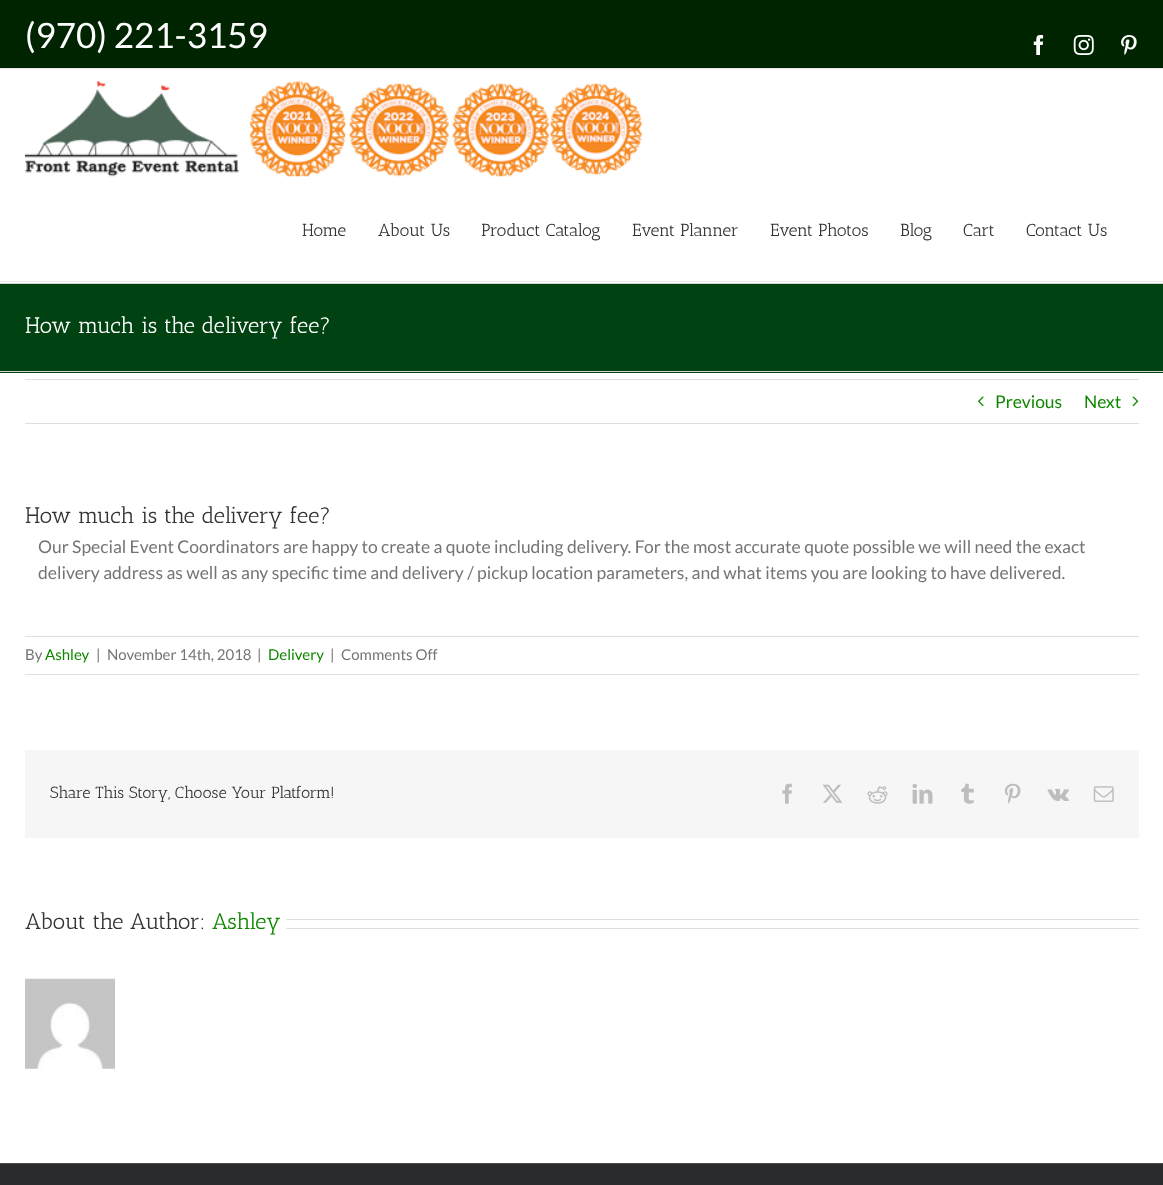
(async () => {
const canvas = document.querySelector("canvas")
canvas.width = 1163
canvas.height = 1185
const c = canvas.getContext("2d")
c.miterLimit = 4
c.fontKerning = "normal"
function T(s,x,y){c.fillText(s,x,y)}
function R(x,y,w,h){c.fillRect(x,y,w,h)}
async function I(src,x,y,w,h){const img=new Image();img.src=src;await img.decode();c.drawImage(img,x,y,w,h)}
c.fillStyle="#fff"
R(0,0,1163,1185)
c.fillStyle="#002400"
R(0,0,1163,68)
c.fillStyle="#e5e5e5"
R(0,68,1163,1)
c.font="35px Lato"
c.fillStyle="#fff"
T("(970) 221-3159",25,48)
await I("1.png",1033,35,11,20)
await I("2.png",1073,35,21,20)
await I("3.png",1121,35,16,20)
c.fillStyle="#e5e5e5"
R(0,281,1163,1)
await I("4.png",25,81,618,96)
c.font="17.5px Antic Slab"
c.fillStyle="#333"
T("Home",302,236)
T("About Us",378,236)
T("Product Catalog",481,236)
T("Event Planner",632,236)
T("Event Photos",770,236)
T("Blog",900,236)
T("Cart",963,236)
T("Contact Us",1026,236)
c.fillStyle="#004211"
R(0,284,1163,89)
c.fillStyle="#d2d3d4"
R(0,283,1163,1)
R(0,371,1163,1)
c.font="22.5px Antic Slab"
c.fillStyle="#fff"
T("How much is the delivery fee?",25,333)
c.fillStyle="#e0dede"
R(25,379,1114,1)
R(25,423,1114,1)
await I("5.png",978,396,6,11)
c.font="17.5px Lato"
c.fillStyle="#0f8700"
T("Previous",995,408)
T("Next",1084,408)
await I("6.png",1132,396,7,11)
c.font="22.5px Antic Slab"
c.fillStyle="#333"
T("How much is the delivery fee?",25,523)
c.font="17.5px Lato"
c.fillStyle="#747474"
T("Our Special Event Coordinators are happy to create a quote including delivery. For the most accurate quote possible we will need the exact",38,553)
T("delivery address as well as any specific time and delivery / pickup location parameters, and what items you are looking to have delivered.",38,579)
c.fillStyle="#e0dede"
R(25,636,1114,1)
R(25,674,1114,1)
c.font="15px Lato"
c.fillStyle="#747474"
T("By",25,660)
c.fillStyle="#0f8700"
T("Ashley",45,660)
c.fillStyle="#747474"
T("|",96,660)
T("November 14th, 2018",107,660)
T("|",257,660)
c.fillStyle="#0f8700"
T("Delivery",268,660)
c.fillStyle="#747474"
T("|",330,660)
T("Comments Off",341,660)
c.fillStyle="#f6f6f6"
R(25,750,1114,88)
c.font="16.25px Antic Slab"
c.fillStyle="#333"
T("Share This Story, Choose Your Platform!",50,798)
await I("7.png",782,783,10,21)
await I("8.png",822,784,21,19)
await I("9.png",867,786,21,18)
await I("10.png",912,784,21,20)
await I("11.png",961,783,13,21)
await I("12.png",1004,783,17,21)
await I("13.png",1047,788,22,13)
await I("14.png",1093,786,21,16)
c.font="22.5px Antic Slab"
T("About the Author:",25,929)
c.fillStyle="#0f8700"
T("Ashley",212,929)
c.fillStyle="#e0dede"
R(286,919,853,1)
R(286,928,853,1)
await I("15.png",25,978,90,91)
c.fillStyle="#282a2b"
R(0,1164,1163,21)
c.fillStyle="#4b4c4d"
R(0,1163,1163,1)
})()
